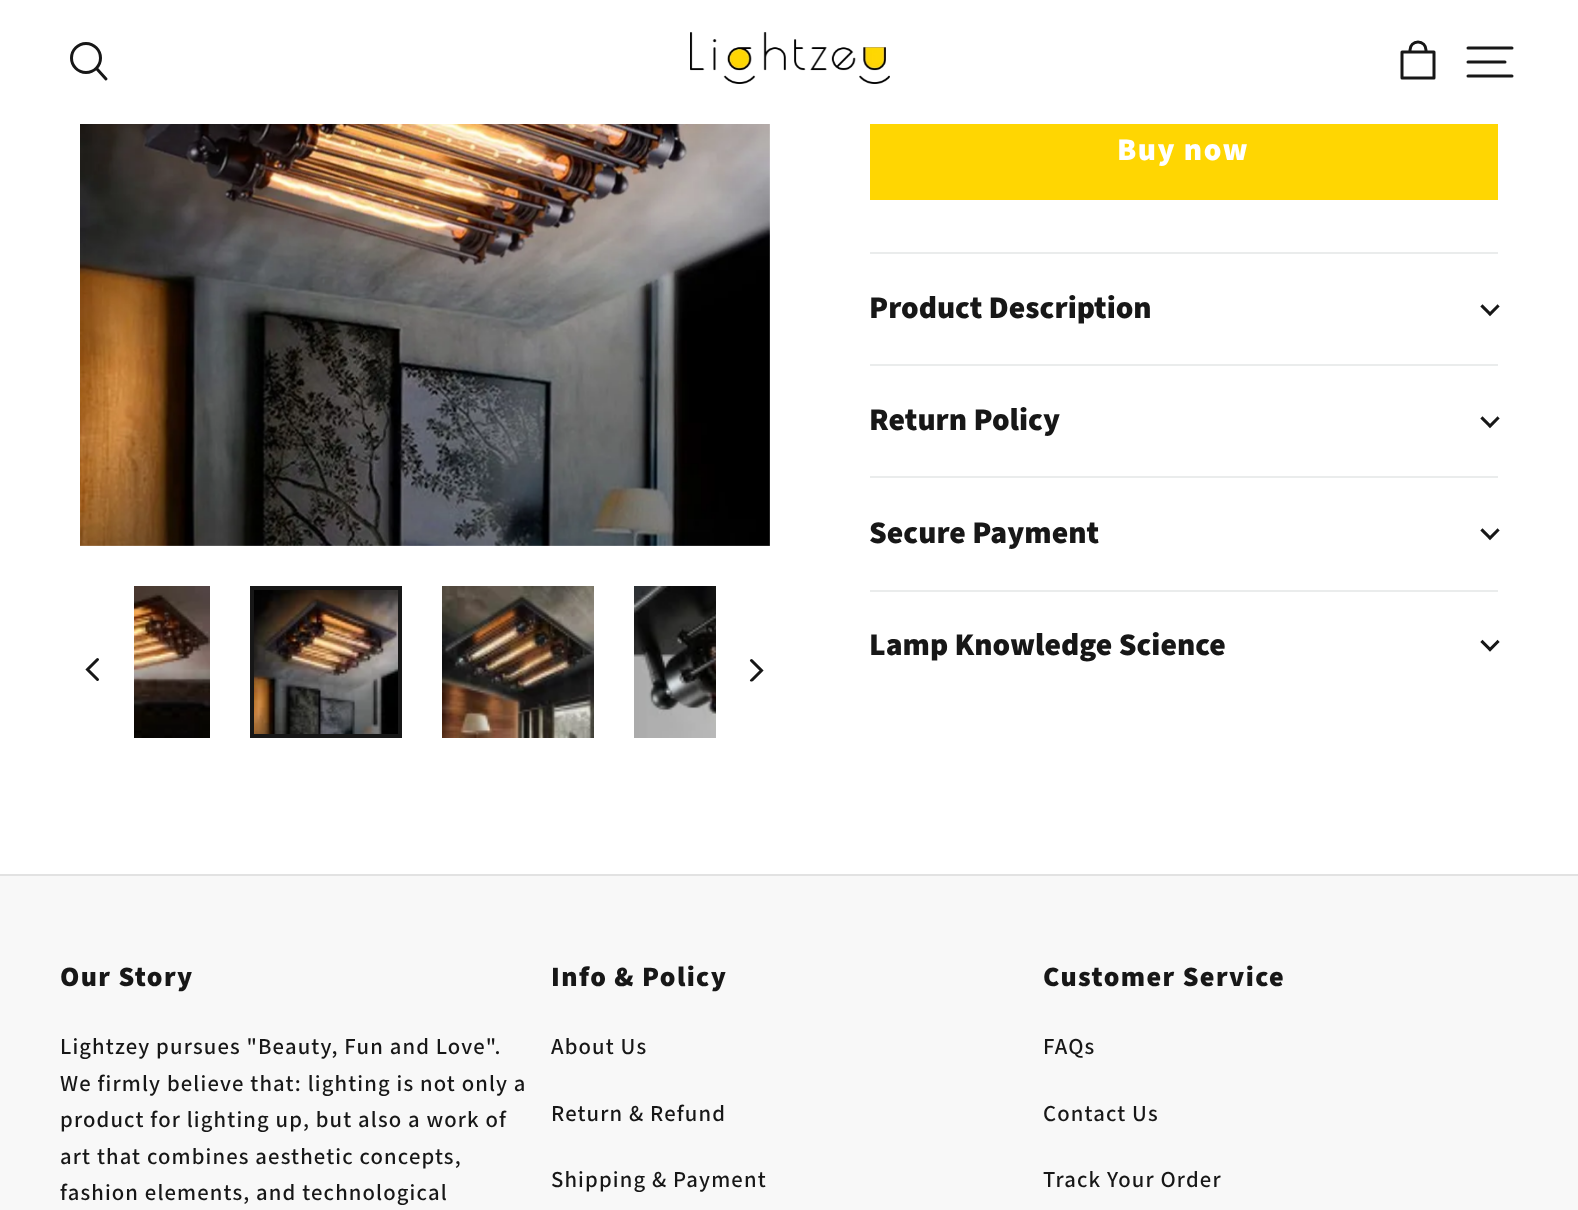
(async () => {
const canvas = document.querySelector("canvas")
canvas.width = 1578
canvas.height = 1210
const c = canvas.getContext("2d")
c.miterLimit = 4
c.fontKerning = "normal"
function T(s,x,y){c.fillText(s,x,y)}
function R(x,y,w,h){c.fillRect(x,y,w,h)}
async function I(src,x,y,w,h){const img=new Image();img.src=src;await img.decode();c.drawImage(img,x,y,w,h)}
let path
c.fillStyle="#fff"
R(0,0,1578,1210)
c.fillStyle="#ffd602"
R(872,124,624,74)
c.strokeStyle="#ffd602"
c.lineWidth=2
c.strokeRect(871,103,626,96)
c.fillStyle="#fff"
R(870,102,628,22)
c.beginPath()
c.arc(86,58,14.5,0,7)
c.strokeStyle="#171717"
c.lineWidth=3
c.stroke()
path = new Path2D("M97 69l9 10")
c.lineCap="round"
c.stroke(path)
await I("1.png",690,32,200,52)
path = new Path2D("M1402 78v-26h32v26zm8-26v-2c0-4.5 3.5-8 8-8c4.5 0 8 3.5 8 8v2")
c.lineJoin="round"
c.stroke(path)
path = new Path2D("M1468 48h44m-44 14h37m-37 14h44")
c.lineJoin="miter"
c.stroke(path)
await I("2.png",80,124,690,422)
path = new Path2D("M97.5 659.5l-10 10l10 10")
c.stroke(path)
await I("3.png",134,586,76,152)
await I("4.png",254,590,144,144)
c.lineWidth=4
c.strokeRect(252,588,148,148)
await I("5.png",442,586,152,152)
await I("6.png",634,586,82,152)
c.save()
path = new Path2D("M765 657.5v24h-16v-24z")
c.clip(path)
path = new Path2D("M751.5 680.5l10-10l-10-10")
c.lineWidth=3
c.stroke(path)
c.restore()
c.letterSpacing="1.5px"
c.font="900 31.5px Mada"
T("Buy now",1117,160)
c.fillStyle="#eaecec"
R(870,252,628,2)
c.letterSpacing="0px"
c.fillStyle="#171717"
T("Product Description",869,318)
path = new Path2D("M1490 314l7.5-7.5m-7.5 7.5l-7.5-7.5")
c.lineWidth=3.1
c.lineCap="square"
c.stroke(path)
c.fillStyle="#eaecec"
R(870,364,628,2)
c.fillStyle="#171717"
T("Return Policy",869,430)
path = new Path2D("M1490 426l7.5-7.5m-7.5 7.5l-7.5-7.5")
c.stroke(path)
c.fillStyle="#eaecec"
R(870,476,628,2)
c.fillStyle="#171717"
T("Secure Payment",869,543)
path = new Path2D("M1490 538l7.5-7.5m-7.5 7.5l-7.5-7.5")
c.stroke(path)
c.fillStyle="#eaecec"
R(870,590,628,2)
c.fillStyle="#171717"
T("Lamp Knowledge Science",869,655)
path = new Path2D("M1490 649.5l7.5-7.5m-7.5 7.5l-7.5-7.5")
c.stroke(path)
c.fillStyle="#f8f8f8"
R(0,876,1578,334)
c.fillStyle="#e2e2e2"
R(0,874,1578,2)
c.letterSpacing="1.4px"
c.font="900 28px Mada"
c.fillStyle="#171717"
T("Our Story",60,986)
c.letterSpacing="1.15px"
c.font="500 22.75px Mada"
T("Lightzey pursues \"Beauty, Fun and Love\".",60,1054)
T("We firmly believe that: lighting is not only a",60,1091)
T("product for lighting up, but also a work of",60,1127)
T("art that combines aesthetic concepts,",60,1164)
T("fashion elements, and technological",60,1200)
c.letterSpacing="1.4px"
c.font="900 28px Mada"
T("Info & Policy",551,986)
c.letterSpacing="1.15px"
c.font="500 22.75px Mada"
T("About Us",551,1054)
T("Return & Refund",551,1121)
T("Shipping & Payment",551,1187)
c.letterSpacing="1.4px"
c.font="900 28px Mada"
T("Customer Service",1043,986)
c.letterSpacing="1.15px"
c.font="500 22.75px Mada"
T("FAQs",1043,1054)
T("Contact Us",1043,1121)
T("Track Your Order",1043,1187)
})()
